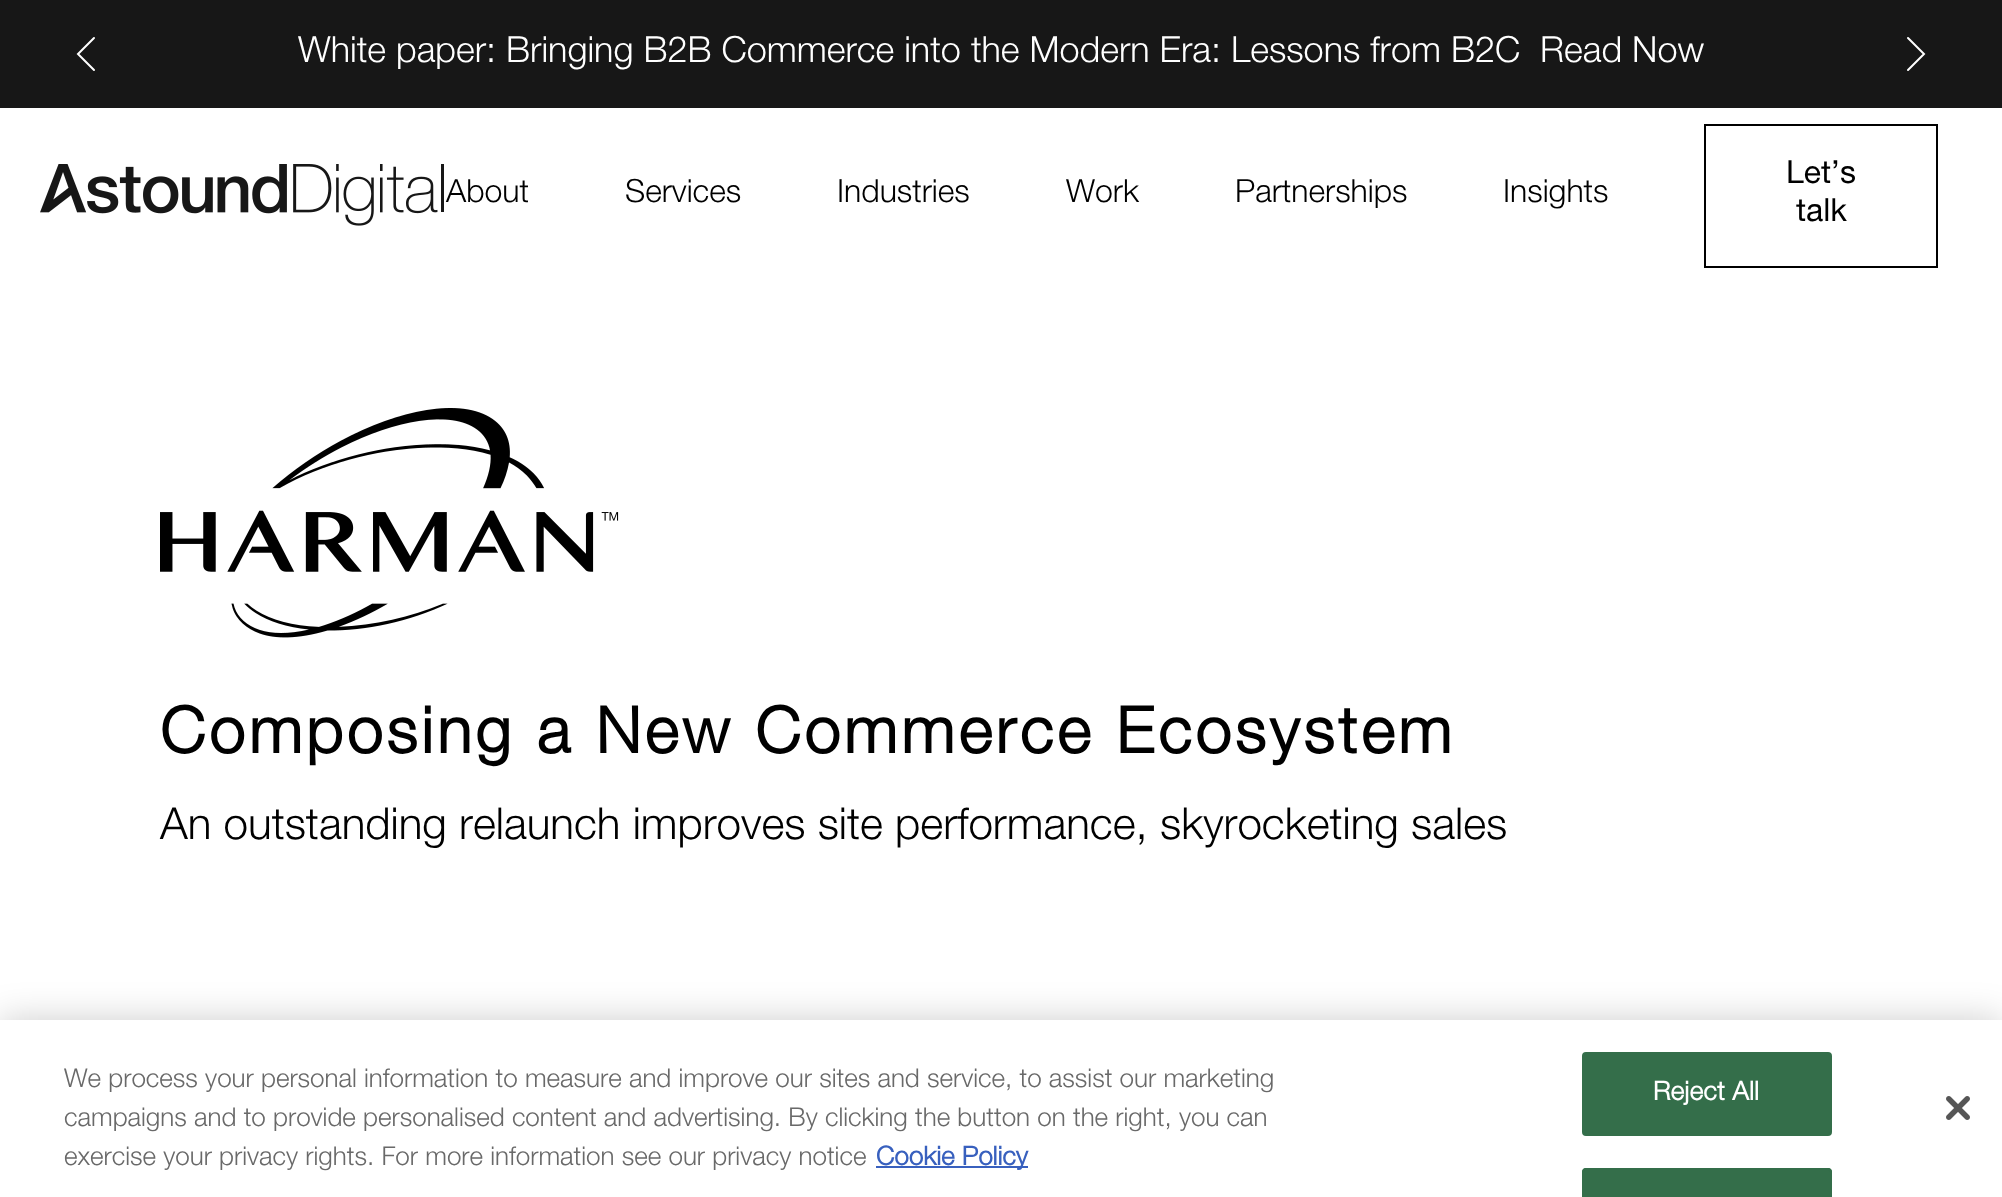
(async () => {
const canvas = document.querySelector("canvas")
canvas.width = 2002
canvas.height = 1197
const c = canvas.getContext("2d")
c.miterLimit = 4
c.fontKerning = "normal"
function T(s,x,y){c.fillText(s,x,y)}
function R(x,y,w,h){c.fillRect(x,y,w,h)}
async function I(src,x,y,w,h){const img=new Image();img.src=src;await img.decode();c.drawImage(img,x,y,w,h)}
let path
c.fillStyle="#fff"
R(0,0,2002,1197)
c.fillStyle="#171717"
R(0,0,2002,108)
c.font="36px Helvetica Neue"
c.fillStyle="#fff"
T("White paper: Bringing B2B Commerce into the Modern Era: Lessons from B2C",298,62)
T("Read Now",1540,62)
path = new Path2D("M94 38l-16 16l16 16")
c.strokeStyle="#fff"
c.lineWidth=2
c.lineCap="round"
c.stroke(path)
path = new Path2D("M1908 38l16 16l-16 16")
c.stroke(path)
await I("1.png",40,164,404,62)
c.font="32px Helvetica Neue"
c.fillStyle="#000"
T("About",446,202)
T("Services",625,202)
T("Industries",837,202)
T("Work",1066,202)
T("Partnerships",1235,202)
T("Insights",1503,202)
c.strokeStyle="#000"
c.strokeRect(1705,125,232,142)
c.font="32px 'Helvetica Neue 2'"
T("Let’s",1786,183)
T("talk",1796,221)
await I("2.png",160,408,459,230)
c.letterSpacing="4px"
c.font="bold 64px Helvetica Neue"
T("Composing a New Commerce Ecosystem",160,753)
c.letterSpacing="0px"
c.font="44px Helvetica Neue"
T("An outstanding relaunch improves site performance, skyrocketing sales",160,839)
c.fillStyle="#00000033"
c.filter="blur(18px)"
c.beginPath()
c.rect(0,1020,2002,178)
c.fill()
c.filter="none"
c.fillStyle="#fff"
R(0,1020,2002,177)
c.font="26px Helvetica Neue"
c.fillStyle="#696969"
T("We process your personal information to measure and improve our sites and service, to assist our marketing",64,1087)
T("campaigns and to provide personalised content and advertising. By clicking the button on the right, you can",64,1126)
T("exercise your privacy rights. For more information see our privacy notice",64,1165)
c.fillStyle="#3860be"
R(876,1166,152,2)
c.font="bold 26px Helvetica Neue"
T("Cookie Policy",876,1165)
c.fillStyle="#346e4a"
c.beginPath()
c.roundRect(1583,1053,248,82,3)
c.fill()
c.strokeStyle="#346e4a"
c.stroke()
c.letterSpacing="0.25px"
c.fillStyle="#fff"
T("Reject All",1653,1100)
c.fillStyle="#346e4a"
path = new Path2D("M1586 1168h242c2 0 4 2 4 4v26h-250v-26c0-2 2-4 4-4z")
c.fill(path)
c.beginPath()
c.roundRect(1583,1169,248,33,3)
c.stroke()
await I("3.png",1946,1096,24,24)
})()
